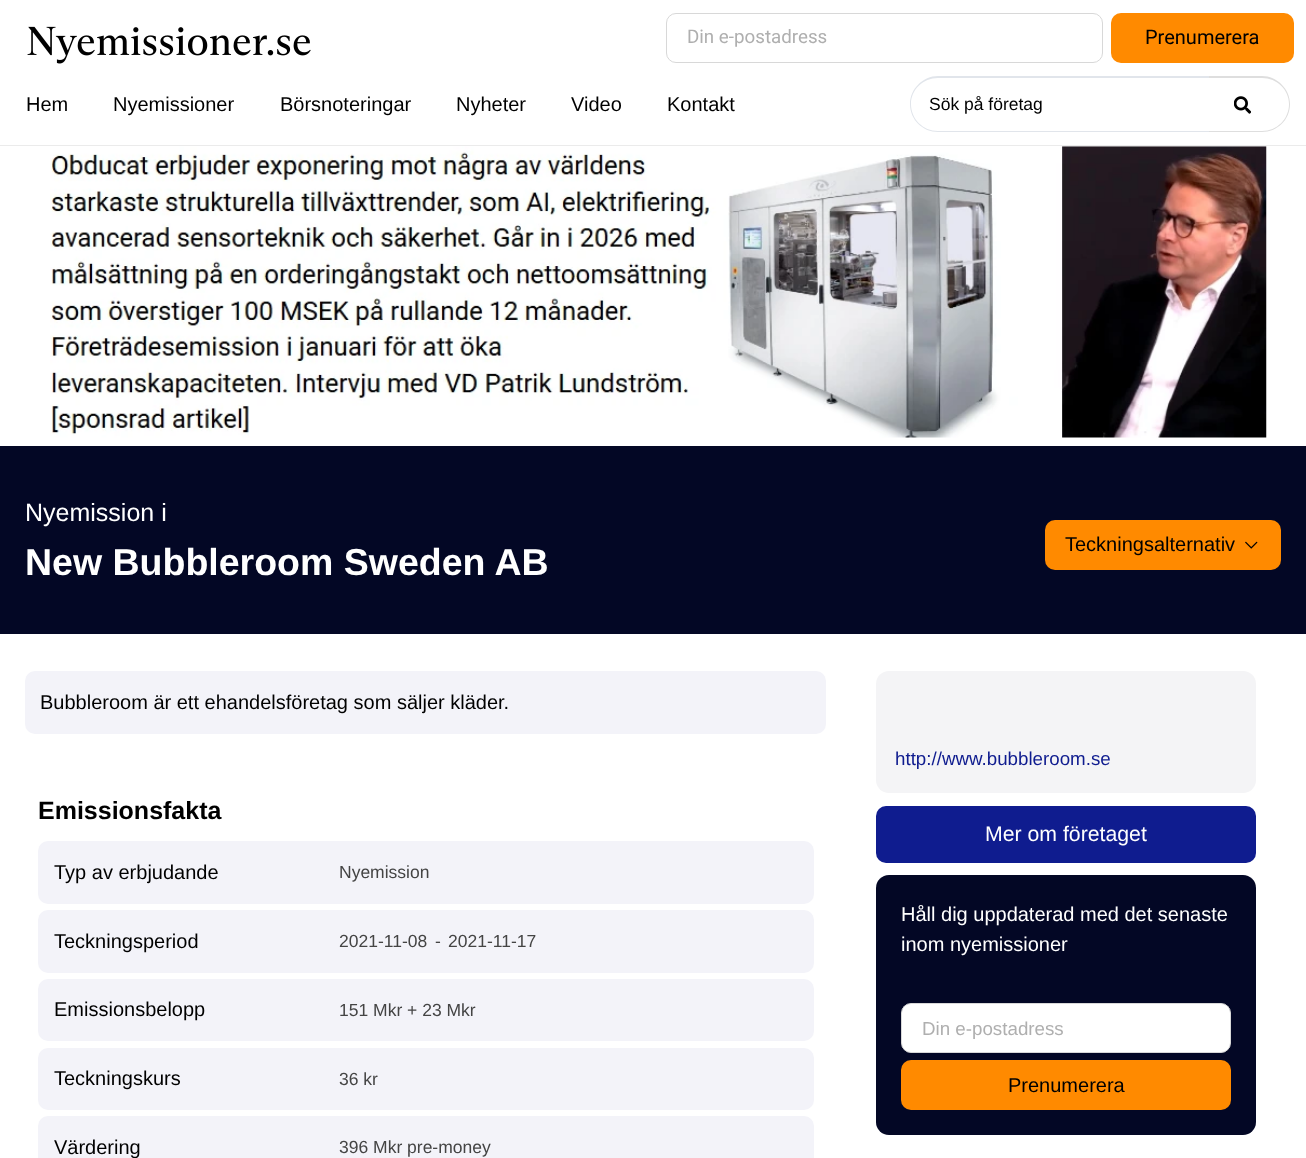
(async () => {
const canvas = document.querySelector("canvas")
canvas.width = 1306
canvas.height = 1158
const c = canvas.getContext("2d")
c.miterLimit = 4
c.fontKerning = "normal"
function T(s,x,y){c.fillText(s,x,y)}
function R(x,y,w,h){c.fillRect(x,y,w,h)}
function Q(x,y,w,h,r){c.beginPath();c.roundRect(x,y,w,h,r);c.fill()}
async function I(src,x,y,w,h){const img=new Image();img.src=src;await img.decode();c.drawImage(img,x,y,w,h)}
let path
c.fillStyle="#fff"
R(0,0,1306,1158)
await I("1.png",27,26,284,38)
c.beginPath()
c.roundRect(666.5,13.5,436,49,9.5)
c.strokeStyle="#d8d8d8"
c.stroke()
c.font="18.75px Roboto"
c.fillStyle="#afafaf"
T("Din e-postadress",687,43)
c.fillStyle="#ff8a00"
Q(1111,13,183,50,10)
c.font="20px Roboto"
c.fillStyle="#000"
T("Prenumerera",1145,44)
c.fillStyle="#ebebeb"
R(0,145,1306,1)
c.font="20px Liberation Sans"
c.fillStyle="#000"
T("Hem",26,111)
T("Nyemissioner",113,111)
T("Börsnoteringar",280,111)
T("Nyheter",456,111)
T("Video",571,111)
T("Kontakt",667,111)
c.fillStyle="#e1e5eb"
path = new Path2D("M938 76h271v56h-271c-15 0-28-12-28-28c0-15 13-28 28-28zm0 2h271v53h-271c-15 0-27-12-27-27c0-14 12-26 27-26z")
c.fill(path,"evenodd")
c.font="17.5px Liberation Sans"
c.fillStyle="#000"
T("Sök på företag",929,110)
c.fillStyle="#dedede"
path = new Path2D("M1209 76h53c15 0 28 13 28 28c0 16-13 28-28 28h-53zm0 2h53c15 0 27 12 27 26c0 15-12 27-27 27h-53z")
c.fill(path,"evenodd")
await I("2.png",1234,96,17,18)
await I("3.png",50,146,1217,292)
c.fillStyle="#030725"
R(0,446,1306,188)
c.font="25px Liberation Sans"
c.fillStyle="#fff"
T("Nyemission i",25,521)
c.font="bold 37.5px Liberation Sans"
T("New Bubbleroom Sweden AB",25,575)
c.fillStyle="#ff8a00"
Q(1045,520,236,50,10)
c.font="20px Liberation Sans"
c.fillStyle="#000"
T("Teckningsalternativ",1065,551)
await I("4.png",1245,541,13,8)
c.fillStyle="#f3f3f9"
Q(25,671,801,63,10)
c.fillStyle="#000"
T("Bubbleroom är ett ehandelsföretag som säljer kläder.",40,709)
c.font="bold 25px Liberation Sans"
T("Emissionsfakta",38,819)
c.fillStyle="#f3f3f9"
Q(38,841,776,63,10)
c.font="20px Liberation Sans"
c.fillStyle="#000"
T("Typ av erbjudande",54,879)
c.font="17.5px Liberation Sans"
c.fillStyle="#444"
T("Nyemission",339,878)
c.fillStyle="#f3f3f9"
Q(38,910,776,63,10)
c.font="20px Liberation Sans"
c.fillStyle="#000"
T("Teckningsperiod",54,948)
c.font="17.5px Liberation Sans"
c.fillStyle="#444"
T("2021-11-08",339,947)
T("-",435,947)
T("2021-11-17",448,947)
c.fillStyle="#f3f3f9"
Q(38,979,776,62,10)
c.font="20px Liberation Sans"
c.fillStyle="#000"
T("Emissionsbelopp",54,1016)
c.font="17.5px Liberation Sans"
c.fillStyle="#444"
T("151 Mkr + 23 Mkr",339,1016)
c.fillStyle="#f3f3f9"
Q(38,1048,776,62,10)
c.font="20px Liberation Sans"
c.fillStyle="#000"
T("Teckningskurs",54,1085)
c.font="17.5px Liberation Sans"
c.fillStyle="#444"
T("36 kr",339,1085)
c.fillStyle="#f3f3f9"
Q(38,1116,776,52,10)
c.font="20px Liberation Sans"
c.fillStyle="#000"
T("Värdering",54,1154)
c.font="17.5px Liberation Sans"
c.fillStyle="#444"
T("396 Mkr pre-money",339,1153)
c.fillStyle="#f4f4f6"
Q(876,671,380,122,13)
c.font="18.75px Liberation Sans"
c.fillStyle="#0f1c8f"
T("http://www.bubbleroom.se",895,765)
Q(876,806,380,57,10)
c.font="21.25px Liberation Sans"
c.fillStyle="#fff"
T("Mer om företaget",985,841)
c.fillStyle="#030725"
Q(876,875,380,260,13)
c.font="20px Liberation Sans"
c.fillStyle="#fff"
T("Håll dig uppdaterad med det senaste",901,921)
T("inom nyemissioner",901,951)
c.beginPath()
c.roundRect(901.5,1003.5,329,49,9.5)
c.fill()
c.stroke()
c.font="18.75px Liberation Sans"
c.fillStyle="#afafaf"
T("Din e-postadress",922,1035)
c.fillStyle="#ff8a00"
Q(901,1060,330,50,10)
c.font="20px Liberation Sans"
c.fillStyle="#000"
T("Prenumerera",1008,1092)
})()
